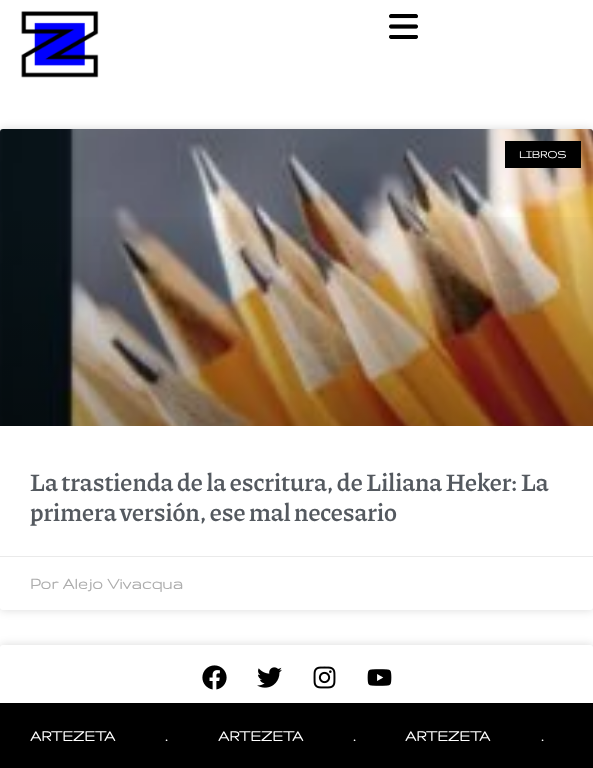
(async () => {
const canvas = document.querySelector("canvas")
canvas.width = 593
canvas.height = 768
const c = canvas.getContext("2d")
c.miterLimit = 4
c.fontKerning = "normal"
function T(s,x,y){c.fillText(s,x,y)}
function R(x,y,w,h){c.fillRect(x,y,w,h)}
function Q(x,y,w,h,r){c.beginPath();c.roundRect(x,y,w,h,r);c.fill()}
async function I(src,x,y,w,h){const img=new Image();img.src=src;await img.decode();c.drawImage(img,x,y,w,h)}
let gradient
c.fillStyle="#fff"
R(0,0,593,768)
await I("1.png",21,11,78,67)
await I("2.png",389,14,29,25)
c.fillStyle="#00000026"
c.filter="blur(5px)"
c.beginPath()
c.roundRect(0,129,593,481,3)
c.fill()
c.filter="none"
c.fillStyle="#fff"
Q(0,129,593,481,3)
await I("3.png",0,129,593,297)
gradient = c.createLinearGradient(297,426,297,129)
gradient.addColorStop(0,"#00000059")
gradient.addColorStop(.75,"#00000000")
c.fillStyle = gradient
R(0,217,593,209)
c.fillStyle="#000"
R(505,141,76,27)
c.font="bold 12px Gruppo"
c.fillStyle="#fff"
T("LIBROS",519,158)
c.font="600 25px Piazzolla"
c.fillStyle="#54595f"
T("La trastienda de la escritura, de Liliana Heker: La",30,491)
T("primera versión, ese mal necesario",30,521)
c.fillStyle="#eaeaea"
R(0,556,593,1)
c.font="bold 18px Gruppo"
c.fillStyle="#adadad"
T("Por Alejo Vivacqua",30,589)
c.fillStyle="#00000026"
c.filter="blur(5px)"
c.beginPath()
c.roundRect(0,645,593,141,3)
c.fill()
c.filter="none"
c.fillStyle="#fff"
Q(0,645,593,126,3)
await I("4.png",202,665,25,25)
await I("5.png",257,667,25,21)
await I("6.png",313,666,23,23)
await I("7.png",367,669,25,17)
c.fillStyle="#000"
R(0,703,593,65)
c.font="bold 17px Gruppo"
c.fillStyle="#fff"
T("ARTEZETA",30,741)
T(".",165,741)
T("ARTEZETA",218,741)
T(".",353,741)
T("ARTEZETA",405,741)
T(".",541,741)
})()
